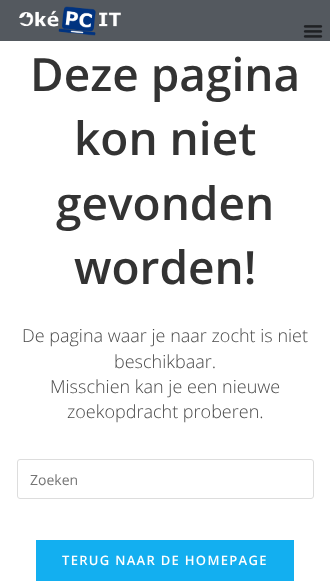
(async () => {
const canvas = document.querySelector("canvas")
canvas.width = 330
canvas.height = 584
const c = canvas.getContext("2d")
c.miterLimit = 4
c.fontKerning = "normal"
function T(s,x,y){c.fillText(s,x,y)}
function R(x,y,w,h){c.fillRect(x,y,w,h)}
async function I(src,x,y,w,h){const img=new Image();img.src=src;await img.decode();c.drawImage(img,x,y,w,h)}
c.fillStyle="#fff"
R(0,0,330,584)
c.fillStyle="#54595f"
R(0,0,330,41)
await I("1.png",19,6,102,30)
await I("2.png",303,25,20,13)
c.font="600 46px Open Sans"
c.fillStyle="#333"
T("Deze pagina",30,91)
T("kon niet",74,155)
T("gevonden",56,220)
T("worden!",74,284)
c.font="300 18px Open Sans"
c.fillStyle="#4a4a4a"
T("De pagina waar je naar zocht is niet",22,342)
T("beschikbaar.",114,368)
T("Misschien kan je een nieuwe",50,393)
T("zoekopdracht proberen.",67,418)
c.beginPath()
c.roundRect(17.5,459.5,296,39,2.5)
c.strokeStyle="#ddd"
c.stroke()
c.font="14px Open Sans"
c.fillStyle="#757575"
T("Zoeken",30,485)
c.fillStyle="#13aff0"
R(36,540,258,41)
c.letterSpacing="1.3px"
c.font="600 13px Open Sans"
c.fillStyle="#fff"
T("TERUG NAAR DE HOMEPAGE",62,565)
})()
